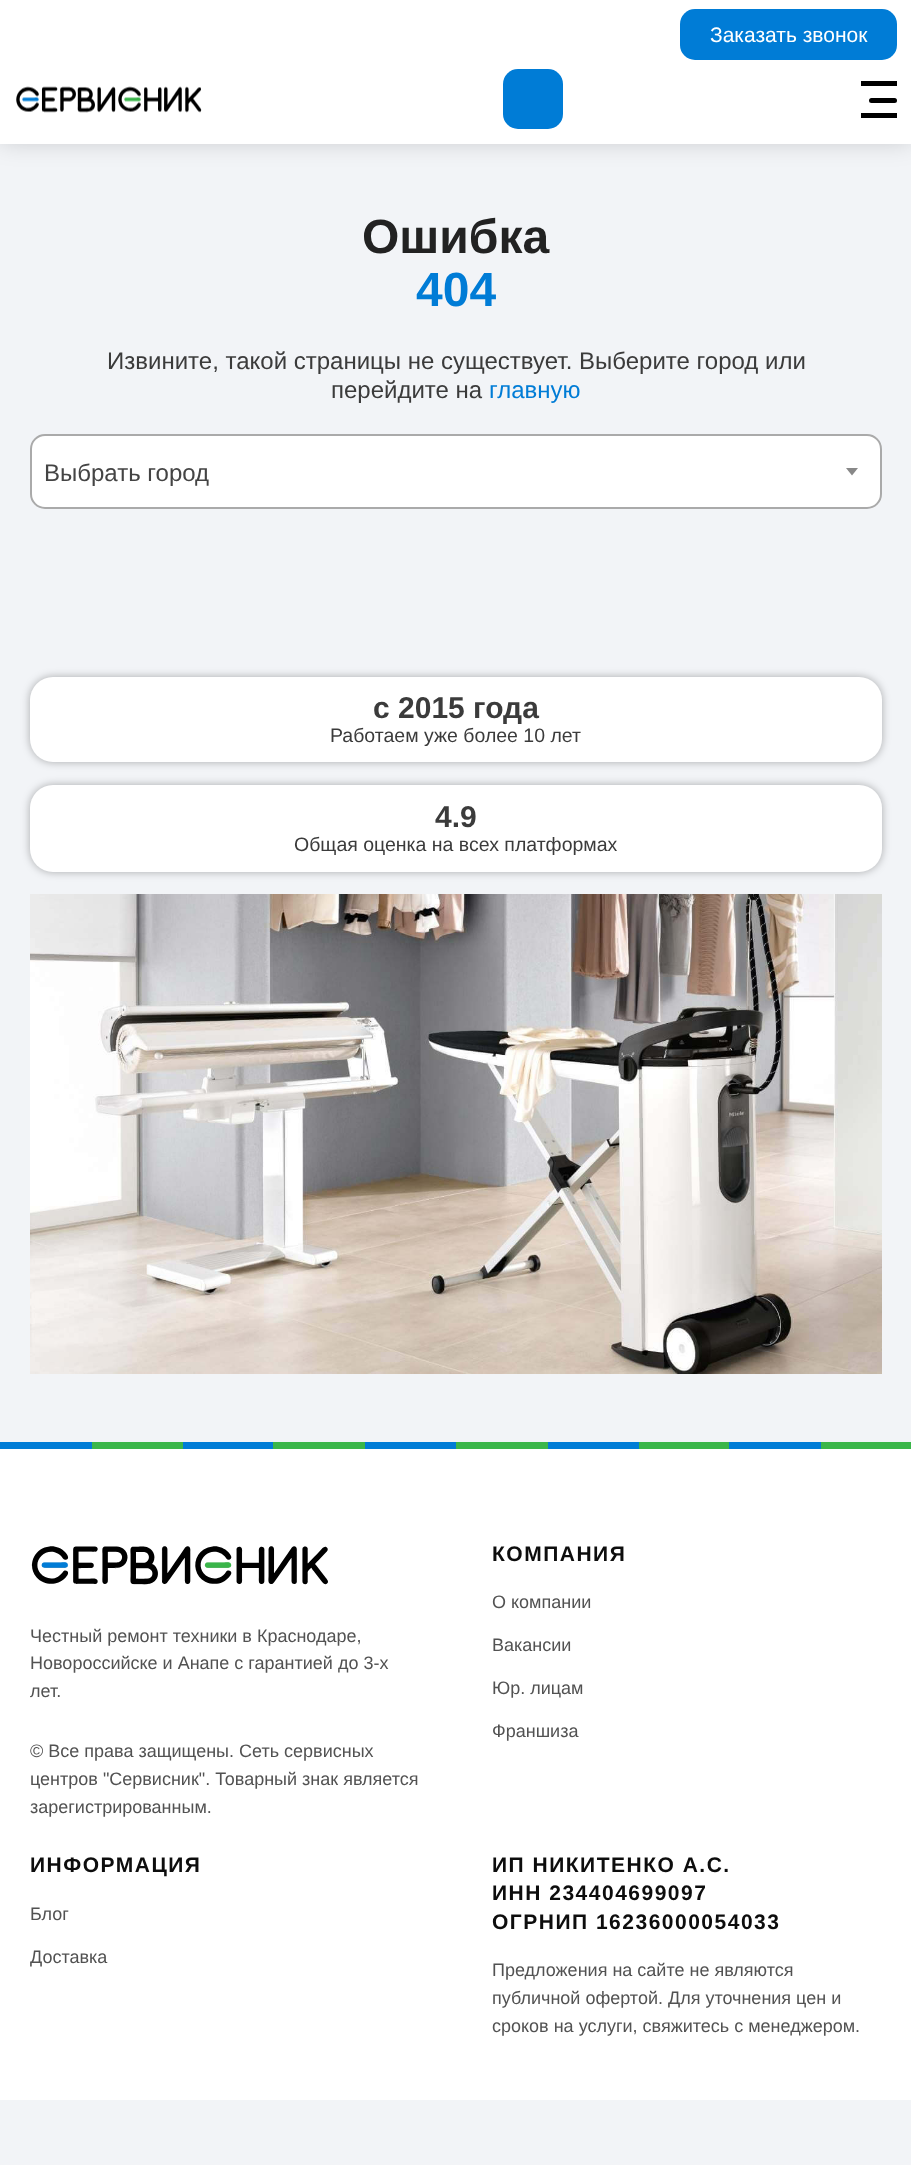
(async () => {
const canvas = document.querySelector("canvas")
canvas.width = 911
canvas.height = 2165
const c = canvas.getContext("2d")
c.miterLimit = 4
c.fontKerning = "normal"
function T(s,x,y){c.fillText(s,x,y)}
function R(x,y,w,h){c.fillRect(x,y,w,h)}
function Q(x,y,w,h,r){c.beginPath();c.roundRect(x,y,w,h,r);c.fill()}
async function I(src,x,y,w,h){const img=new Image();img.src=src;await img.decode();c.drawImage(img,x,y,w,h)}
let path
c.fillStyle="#f2f4f7"
R(0,0,911,2165)
c.fillStyle="#00000033"
c.filter="blur(13px)"
c.beginPath()
c.rect(0,-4,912,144)
c.fill()
c.filter="none"
c.fillStyle="#fff"
R(0,0,911,144)
c.fillStyle="#007cd6"
Q(680,9,217,51,15)
c.font="21px Liberation Sans"
c.fillStyle="#fff"
T("Заказать звонок",710,42)
await I("1.png",16,86,186,27)
c.fillStyle="#007cd6"
Q(503,69,60,60,15)
c.fillStyle="#000"
R(861,81,36,5)
Q(869,98,28,5,2.5)
R(861,113,36,5)
c.font="bold 48px Liberation Sans"
c.fillStyle="#222"
T("Ошибка",362,253)
c.fillStyle="#007cd6"
T("404",416,306)
c.font="24px Liberation Sans"
c.fillStyle="#3b3b3b"
T("Извините, такой страницы не существует. Выберите город или",107,369)
T("перейдите на",331,398)
c.fillStyle="#007cd6"
T("главную",489,398)
c.fillStyle="#fff"
c.beginPath()
c.roundRect(31,435,850,73,14)
c.fill()
c.strokeStyle="#aaa"
c.lineWidth=2
c.stroke()
c.fillStyle="#444"
T("Выбрать город",44,481)
c.fillStyle="#888"
path = new Path2D("M846 468h12l-6 7.5z")
c.fill(path)
c.fillStyle="#0000004d"
c.filter="blur(4px)"
c.beginPath()
c.roundRect(30,677,852,85,23)
c.fill()
c.filter="none"
c.fillStyle="#fff"
Q(30,677,852,85,23)
c.font="bold 30px Liberation Sans"
c.fillStyle="#3b3b3b"
T("с 2015 года",373,718)
c.font="19.5px Liberation Sans"
T("Работаем уже более 10 лет",330,742)
c.fillStyle="#0000004d"
c.filter="blur(4px)"
c.beginPath()
c.roundRect(30,785,852,87,23)
c.fill()
c.filter="none"
c.fillStyle="#fff"
Q(30,785,852,87,23)
c.font="bold 30px Liberation Sans"
c.fillStyle="#3b3b3b"
T("4.9",435,827)
c.font="19.5px Liberation Sans"
T("Общая оценка на всех платформах",294,851)
await I("2.png",30,894,852,480)
c.fillStyle="#007cd6"
R(0,1442,92,7)
c.fillStyle="#3ab649"
R(92,1442,91,7)
c.fillStyle="#007cd6"
R(183,1442,90,7)
c.fillStyle="#3ab649"
R(273,1442,92,7)
c.fillStyle="#007cd6"
R(365,1442,91,7)
c.fillStyle="#3ab649"
R(456,1442,92,7)
c.fillStyle="#007cd6"
R(548,1442,91,7)
c.fillStyle="#3ab649"
R(639,1442,90,7)
c.fillStyle="#007cd6"
R(729,1442,92,7)
c.fillStyle="#3ab649"
R(821,1442,90,7)
c.fillStyle="#fff"
R(0,1449,911,651)
await I("3.png",31,1546,297,39)
c.font="18px Liberation Sans"
c.fillStyle="#525252"
T("Честный ремонт техники в Краснодаре,",30,1642)
T("Новороссийске и Анапе с гарантией до 3-х",30,1669)
T("лет.",30,1697)
T("© Все права защищены. Сеть сервисных",30,1757)
T("центров \"Сервисник\". Товарный знак является",30,1785)
T("зарегистрированным.",30,1813)
c.letterSpacing="1.5px"
c.font="bold 21px Liberation Sans"
c.fillStyle="#0d0d0d"
T("КОМПАНИЯ",492,1561)
c.letterSpacing="0px"
c.font="18px Liberation Sans"
c.fillStyle="#525252"
T("О компании",492,1608)
T("Вакансии",492,1651)
T("Юр. лицам",492,1694)
T("Франшиза",492,1737)
c.letterSpacing="1.5px"
c.font="bold 21px Liberation Sans"
c.fillStyle="#0d0d0d"
T("ИНФОРМАЦИЯ",30,1872)
c.letterSpacing="0px"
c.font="18px Liberation Sans"
c.fillStyle="#525252"
T("Блог",30,1920)
T("Доставка",30,1963)
c.letterSpacing="1.5px"
c.font="bold 21px Liberation Sans"
c.fillStyle="#0d0d0d"
T("ИП НИКИТЕНКО А.С.",492,1872)
T("ИНН 234404699097",492,1900)
T("ОГРНИП 16236000054033",492,1929)
c.letterSpacing="0px"
c.font="18px Liberation Sans"
c.fillStyle="#525252"
T("Предложения на сайте не являются",492,1976)
T("публичной офертой. Для уточнения цен и",492,2004)
T("сроков на услуги, свяжитесь с менеджером.",492,2032)
})()
